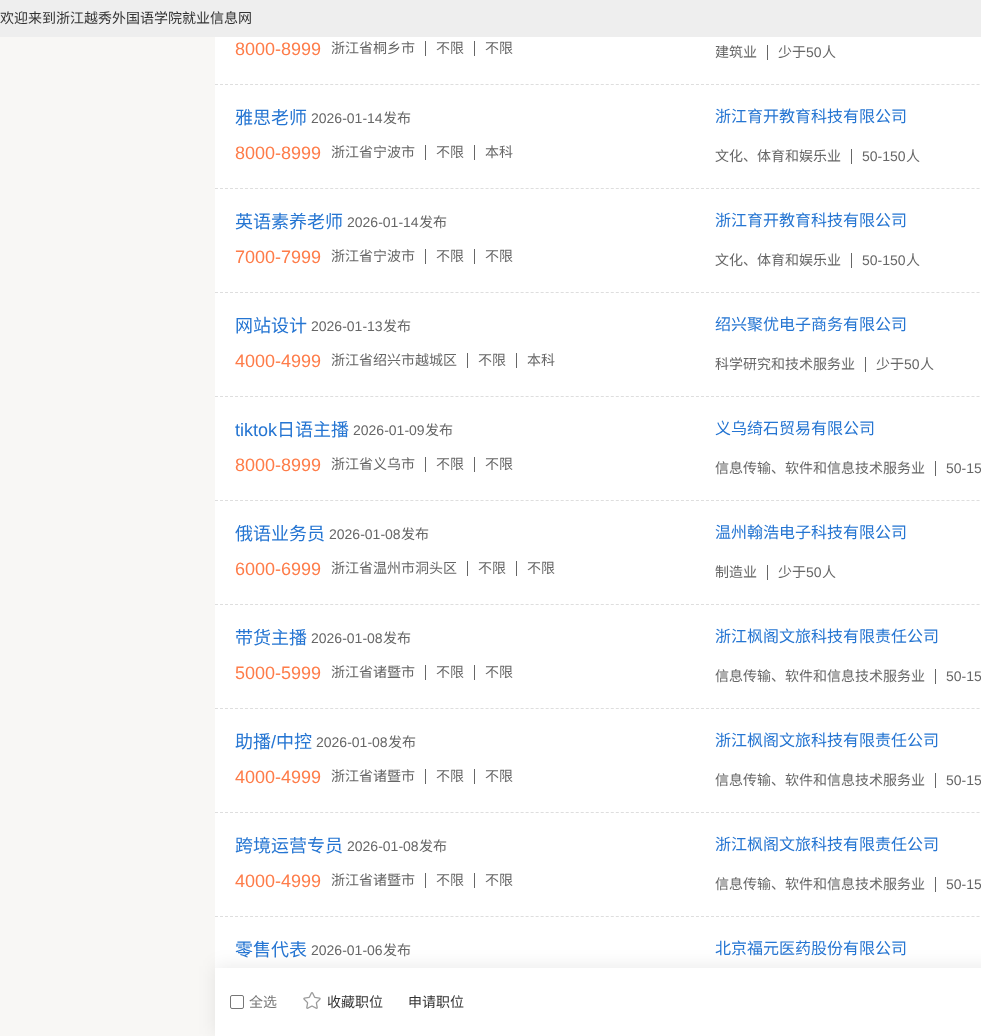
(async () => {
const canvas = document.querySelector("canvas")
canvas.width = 981
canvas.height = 1036
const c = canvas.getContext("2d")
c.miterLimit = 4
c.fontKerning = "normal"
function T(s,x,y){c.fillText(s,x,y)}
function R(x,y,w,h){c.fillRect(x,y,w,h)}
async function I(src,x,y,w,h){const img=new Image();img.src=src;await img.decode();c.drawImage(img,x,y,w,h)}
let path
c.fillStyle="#f8f7f5"
R(0,0,981,1036)
c.fillStyle="#eee"
R(0,0,981,37)
c.font="14px Noto Sans CJK SC"
c.fillStyle="#333"
T("欢迎来到浙江越秀外国语学院就业信息网",0,23)
c.fillStyle="#fff"
R(215,37,766,931)
c.font="18px Liberation Sans"
c.fillStyle="#fe7c49"
T("8000-8999",235,55)
c.fillStyle="#666"
R(425,41,1,15)
c.font="14px Noto Sans CJK SC"
T("浙江省桐乡市",331,53)
R(474,41,1,15)
T("不限",436,53)
T("不限",485,53)
R(767,45,1,15)
T("建筑业",715,57)
T("少于",778,57)
c.font="14px Liberation Sans"
T("50",806,57)
c.font="14px Noto Sans CJK SC"
T("人",822,57)
path = new Path2D("M215 84.5h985")
c.strokeStyle="#dedede"
c.setLineDash([3,2.01])
c.stroke(path)
c.font="18px Noto Sans CJK SC"
c.fillStyle="#2575d2"
T("雅思老师",235,124)
c.font="14px Liberation Sans"
c.fillStyle="#666"
T("2026-01-14",311,123)
c.font="14px Noto Sans CJK SC"
T("发布",383,123)
c.font="16px Noto Sans CJK SC"
c.fillStyle="#2575d2"
T("浙江育开教育科技有限公司",715,122)
c.fillStyle="#666"
R(851,149,1,15)
c.font="14px Noto Sans CJK SC"
T("文化、体育和娱乐业",715,161)
c.font="14px Liberation Sans"
T("50-150",862,161)
c.font="14px Noto Sans CJK SC"
T("人",906,161)
c.font="18px Liberation Sans"
c.fillStyle="#fe7c49"
T("8000-8999",235,159)
c.fillStyle="#666"
R(425,145,1,15)
c.font="14px Noto Sans CJK SC"
T("浙江省宁波市",331,157)
R(474,145,1,15)
T("不限",436,157)
T("本科",485,157)
path = new Path2D("M215 188.5h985")
c.stroke(path)
c.font="18px Noto Sans CJK SC"
c.fillStyle="#2575d2"
T("英语素养老师",235,228)
c.font="14px Liberation Sans"
c.fillStyle="#666"
T("2026-01-14",347,227)
c.font="14px Noto Sans CJK SC"
T("发布",419,227)
c.font="16px Noto Sans CJK SC"
c.fillStyle="#2575d2"
T("浙江育开教育科技有限公司",715,226)
c.fillStyle="#666"
R(851,253,1,15)
c.font="14px Noto Sans CJK SC"
T("文化、体育和娱乐业",715,265)
c.font="14px Liberation Sans"
T("50-150",862,265)
c.font="14px Noto Sans CJK SC"
T("人",906,265)
c.font="18px Liberation Sans"
c.fillStyle="#fe7c49"
T("7000-7999",235,263)
c.fillStyle="#666"
R(425,249,1,15)
c.font="14px Noto Sans CJK SC"
T("浙江省宁波市",331,261)
R(474,249,1,15)
T("不限",436,261)
T("不限",485,261)
path = new Path2D("M215 292.5h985")
c.stroke(path)
c.font="18px Noto Sans CJK SC"
c.fillStyle="#2575d2"
T("网站设计",235,332)
c.font="14px Liberation Sans"
c.fillStyle="#666"
T("2026-01-13",311,331)
c.font="14px Noto Sans CJK SC"
T("发布",383,331)
c.font="16px Noto Sans CJK SC"
c.fillStyle="#2575d2"
T("绍兴聚优电子商务有限公司",715,330)
c.fillStyle="#666"
R(865,357,1,15)
c.font="14px Noto Sans CJK SC"
T("科学研究和技术服务业",715,369)
T("少于",876,369)
c.font="14px Liberation Sans"
T("50",904,369)
c.font="14px Noto Sans CJK SC"
T("人",920,369)
c.font="18px Liberation Sans"
c.fillStyle="#fe7c49"
T("4000-4999",235,367)
c.fillStyle="#666"
R(467,353,1,15)
c.font="14px Noto Sans CJK SC"
T("浙江省绍兴市越城区",331,365)
R(516,353,1,15)
T("不限",478,365)
T("本科",527,365)
path = new Path2D("M215 396.5h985")
c.stroke(path)
c.font="18px Liberation Sans"
c.fillStyle="#2575d2"
T("tiktok",235,436)
c.font="18px Noto Sans CJK SC"
T("日语主播",277,436)
c.font="14px Liberation Sans"
c.fillStyle="#666"
T("2026-01-09",353,435)
c.font="14px Noto Sans CJK SC"
T("发布",425,435)
c.font="16px Noto Sans CJK SC"
c.fillStyle="#2575d2"
T("义乌绮石贸易有限公司",715,434)
c.fillStyle="#666"
R(935,461,1,15)
c.font="14px Noto Sans CJK SC"
T("信息传输、软件和信息技术服务业",715,473)
c.font="14px Liberation Sans"
T("50-15",946,473)
c.font="18px Liberation Sans"
c.fillStyle="#fe7c49"
T("8000-8999",235,471)
c.fillStyle="#666"
R(425,457,1,15)
c.font="14px Noto Sans CJK SC"
T("浙江省义乌市",331,469)
R(474,457,1,15)
T("不限",436,469)
T("不限",485,469)
path = new Path2D("M215 500.5h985")
c.stroke(path)
c.font="18px Noto Sans CJK SC"
c.fillStyle="#2575d2"
T("俄语业务员",235,540)
c.font="14px Liberation Sans"
c.fillStyle="#666"
T("2026-01-08",329,539)
c.font="14px Noto Sans CJK SC"
T("发布",401,539)
c.font="16px Noto Sans CJK SC"
c.fillStyle="#2575d2"
T("温州翰浩电子科技有限公司",715,538)
c.fillStyle="#666"
R(767,565,1,15)
c.font="14px Noto Sans CJK SC"
T("制造业",715,577)
T("少于",778,577)
c.font="14px Liberation Sans"
T("50",806,577)
c.font="14px Noto Sans CJK SC"
T("人",822,577)
c.font="18px Liberation Sans"
c.fillStyle="#fe7c49"
T("6000-6999",235,575)
c.fillStyle="#666"
R(467,561,1,15)
c.font="14px Noto Sans CJK SC"
T("浙江省温州市洞头区",331,573)
R(516,561,1,15)
T("不限",478,573)
T("不限",527,573)
path = new Path2D("M215 604.5h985")
c.stroke(path)
c.font="18px Noto Sans CJK SC"
c.fillStyle="#2575d2"
T("带货主播",235,644)
c.font="14px Liberation Sans"
c.fillStyle="#666"
T("2026-01-08",311,643)
c.font="14px Noto Sans CJK SC"
T("发布",383,643)
c.font="16px Noto Sans CJK SC"
c.fillStyle="#2575d2"
T("浙江枫阁文旅科技有限责任公司",715,642)
c.fillStyle="#666"
R(935,669,1,15)
c.font="14px Noto Sans CJK SC"
T("信息传输、软件和信息技术服务业",715,681)
c.font="14px Liberation Sans"
T("50-15",946,681)
c.font="18px Liberation Sans"
c.fillStyle="#fe7c49"
T("5000-5999",235,679)
c.fillStyle="#666"
R(425,665,1,15)
c.font="14px Noto Sans CJK SC"
T("浙江省诸暨市",331,677)
R(474,665,1,15)
T("不限",436,677)
T("不限",485,677)
path = new Path2D("M215 708.5h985")
c.stroke(path)
c.font="18px Noto Sans CJK SC"
c.fillStyle="#2575d2"
T("助播",235,748)
c.font="18px Liberation Sans"
T("/",271,748)
c.font="18px Noto Sans CJK SC"
T("中控",276,748)
c.font="14px Liberation Sans"
c.fillStyle="#666"
T("2026-01-08",316,747)
c.font="14px Noto Sans CJK SC"
T("发布",388,747)
c.font="16px Noto Sans CJK SC"
c.fillStyle="#2575d2"
T("浙江枫阁文旅科技有限责任公司",715,746)
c.fillStyle="#666"
R(935,773,1,15)
c.font="14px Noto Sans CJK SC"
T("信息传输、软件和信息技术服务业",715,785)
c.font="14px Liberation Sans"
T("50-15",946,785)
c.font="18px Liberation Sans"
c.fillStyle="#fe7c49"
T("4000-4999",235,783)
c.fillStyle="#666"
R(425,769,1,15)
c.font="14px Noto Sans CJK SC"
T("浙江省诸暨市",331,781)
R(474,769,1,15)
T("不限",436,781)
T("不限",485,781)
path = new Path2D("M215 812.5h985")
c.stroke(path)
c.font="18px Noto Sans CJK SC"
c.fillStyle="#2575d2"
T("跨境运营专员",235,852)
c.font="14px Liberation Sans"
c.fillStyle="#666"
T("2026-01-08",347,851)
c.font="14px Noto Sans CJK SC"
T("发布",419,851)
c.font="16px Noto Sans CJK SC"
c.fillStyle="#2575d2"
T("浙江枫阁文旅科技有限责任公司",715,850)
c.fillStyle="#666"
R(935,877,1,15)
c.font="14px Noto Sans CJK SC"
T("信息传输、软件和信息技术服务业",715,889)
c.font="14px Liberation Sans"
T("50-15",946,889)
c.font="18px Liberation Sans"
c.fillStyle="#fe7c49"
T("4000-4999",235,887)
c.fillStyle="#666"
R(425,873,1,15)
c.font="14px Noto Sans CJK SC"
T("浙江省诸暨市",331,885)
R(474,873,1,15)
T("不限",436,885)
T("不限",485,885)
path = new Path2D("M215 916.5h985")
c.stroke(path)
c.font="18px Noto Sans CJK SC"
c.fillStyle="#2575d2"
T("零售代表",235,956)
c.font="14px Liberation Sans"
c.fillStyle="#666"
T("2026-01-06",311,955)
c.font="14px Noto Sans CJK SC"
T("发布",383,955)
c.font="16px Noto Sans CJK SC"
c.fillStyle="#2575d2"
T("北京福元医药股份有限公司",715,954)
c.fillStyle="#00000014"
c.filter="blur(9px)"
c.beginPath()
c.rect(215,966,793,68)
c.fill()
c.filter="none"
c.fillStyle="#fff"
R(215,968,766,68)
c.beginPath()
c.roundRect(230.5,995.5,13,13,1.5)
c.strokeStyle="#767676"
c.setLineDash([])
c.stroke()
c.font="14px Noto Sans CJK SC"
c.fillStyle="#777"
T("全选",249,1007)
await I("1.png",303,992,18,17)
c.fillStyle="#333"
T("收藏职位",327,1007)
T("申请职位",408,1007)
})()
